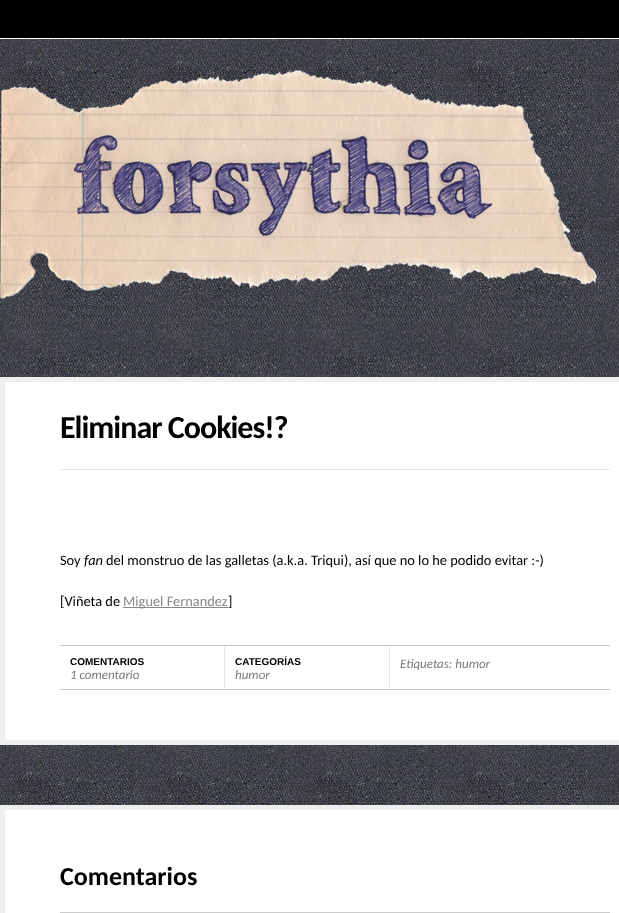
(async () => {
const canvas = document.querySelector("canvas")
canvas.width = 619
canvas.height = 913
const c = canvas.getContext("2d")
c.miterLimit = 4
c.fontKerning = "normal"
function T(s,x,y){c.fillText(s,x,y)}
function R(x,y,w,h){c.fillRect(x,y,w,h)}
async function I(src,x,y,w,h){const img=new Image();img.src=src;await img.decode();c.drawImage(img,x,y,w,h)}
c.fillStyle="#fff"
R(0,0,619,913)
await I("1.png",0,357,619,448)
c.fillStyle="#000"
R(0,0,619,38)
await I("2.png",0,39,619,318)
await I("3.png",0,70,599,229)
c.fillStyle="#fff"
c.beginPath()
c.rect(2.5,379.5,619,363)
c.fill()
c.strokeStyle="#efefef"
c.lineWidth=5
c.stroke()
c.fillStyle="#e7e7e7"
R(60,469,550,1)
c.letterSpacing="-1px"
c.font="bold 32px Carlito"
c.fillStyle="#000"
T("Eliminar Cookies!?",60,438)
c.letterSpacing="0px"
c.font="14.4px Carlito"
T("Soy",60,565)
c.font="italic 14.4px Carlito"
T("fan",84,565)
c.font="14.4px Carlito"
T("del monstruo de las galletas (a.k.a. Triqui), así que no lo he podido evitar :-)",106,565)
T("[Viñeta de",60,606)
c.fillStyle="#888"
R(123,607,105,1)
T("Miguel Fernandez",123,606)
c.fillStyle="#000"
T("]",228,606)
c.fillStyle="#c4c4c4"
R(60,645,550,1)
R(60,689,550,1)
c.font="bold 10px Liberation Sans"
c.fillStyle="#000"
T("COMENTARIOS",70,665)
c.font="italic 13px Carlito"
c.fillStyle="#7a7a7a"
T("1 comentario",70,679)
c.fillStyle="#e7e7e7"
R(389,646,1,43)
R(224,646,1,43)
c.font="bold 10px Liberation Sans"
c.fillStyle="#000"
T("CATEGORÍAS",235,665)
c.font="italic 13px Carlito"
c.fillStyle="#7a7a7a"
T("humor",235,679)
T("Etiquetas: humor",400,668)
c.strokeRect(2.5,807.5,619,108)
c.font="bold 26px Carlito"
c.fillStyle="#000"
T("Comentarios",60,885)
c.strokeStyle="#ccc"
c.lineWidth=1
c.strokeRect(60.5,912.5,549,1)
})()
